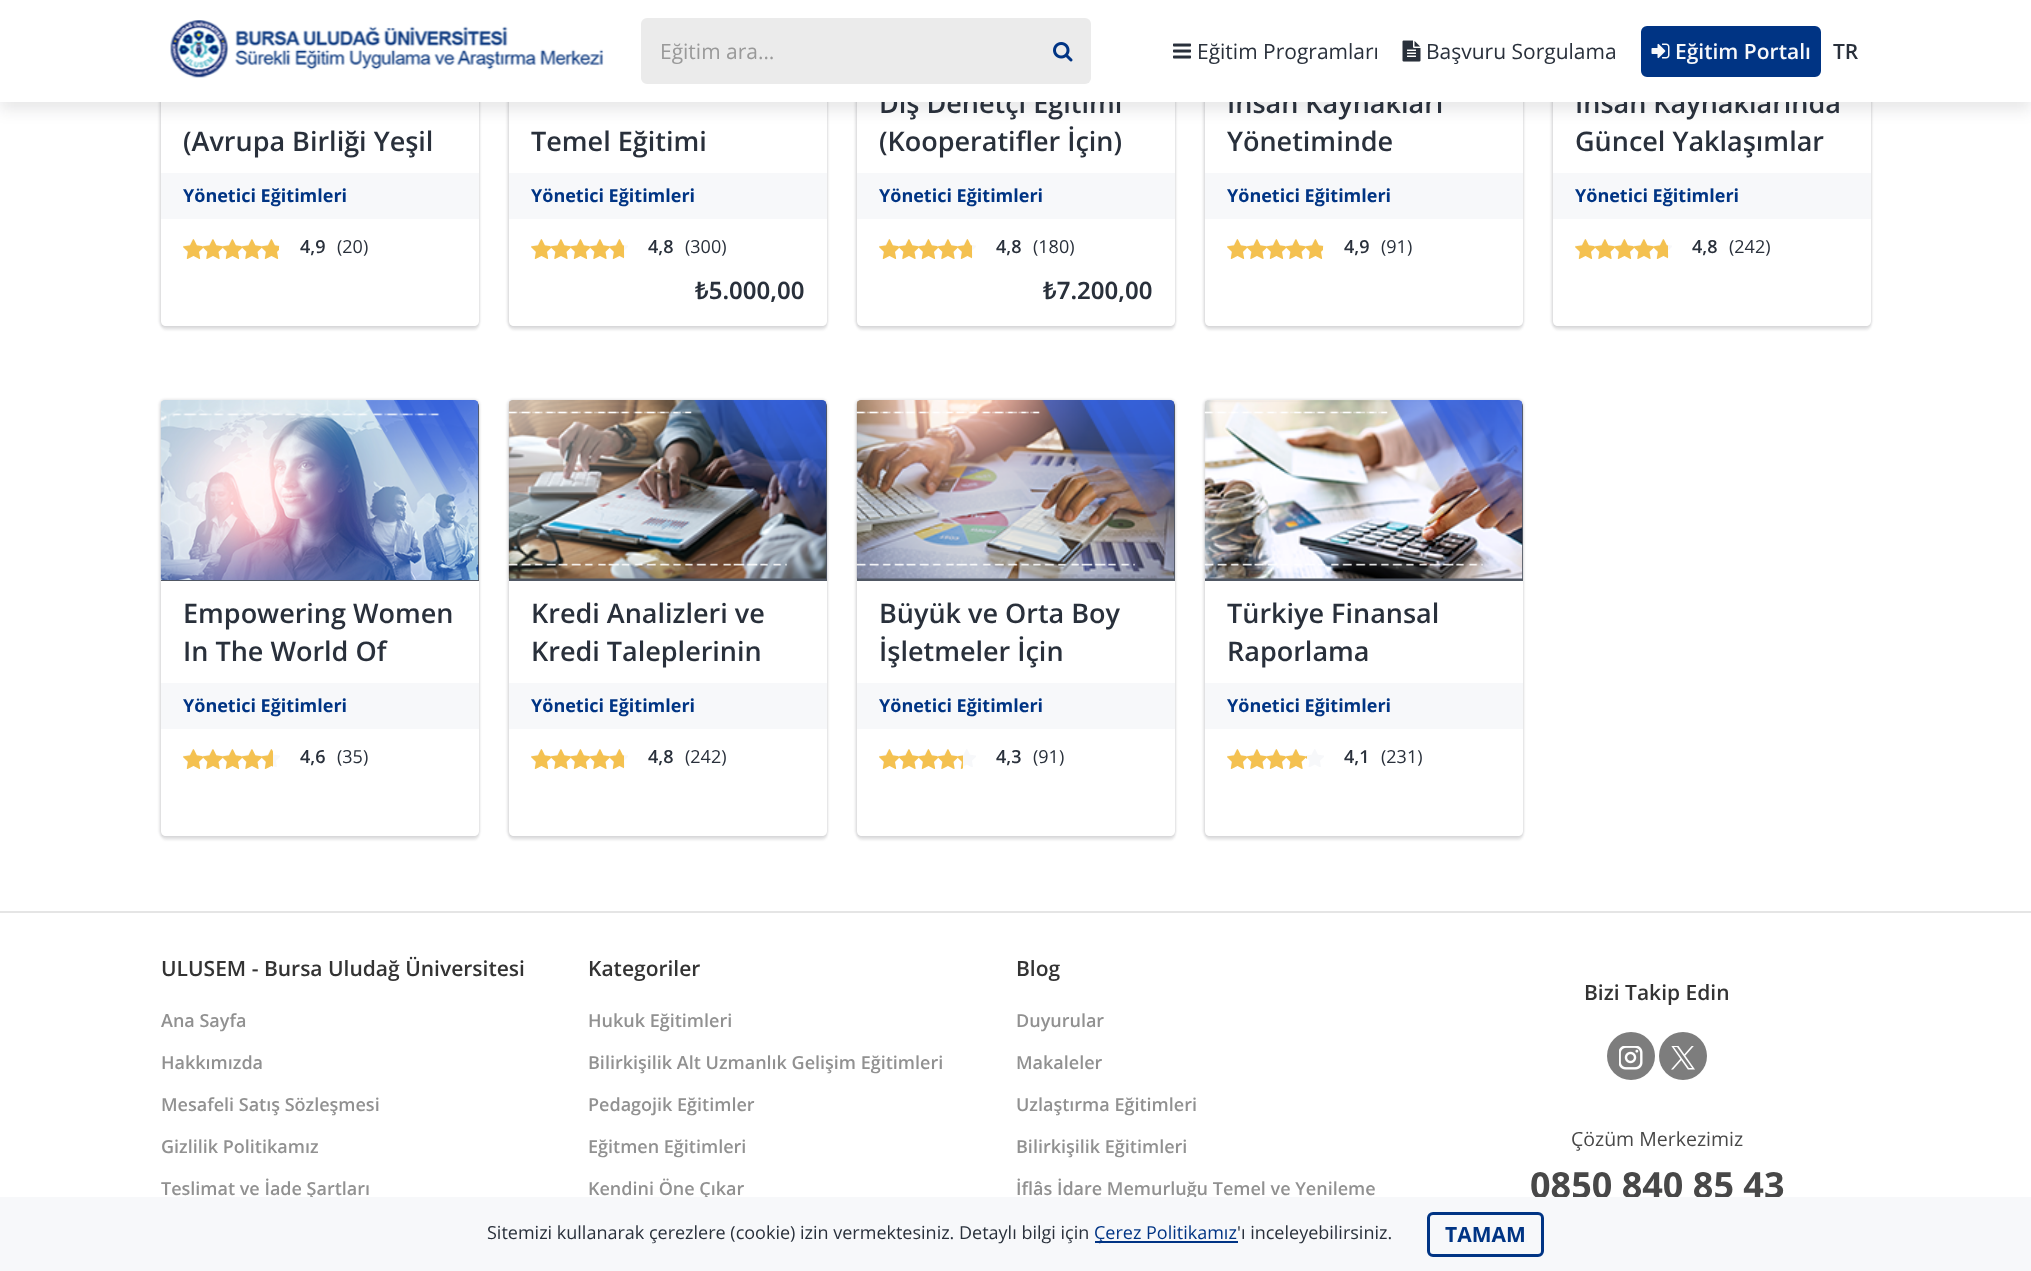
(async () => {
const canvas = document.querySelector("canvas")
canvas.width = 2031
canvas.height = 1271
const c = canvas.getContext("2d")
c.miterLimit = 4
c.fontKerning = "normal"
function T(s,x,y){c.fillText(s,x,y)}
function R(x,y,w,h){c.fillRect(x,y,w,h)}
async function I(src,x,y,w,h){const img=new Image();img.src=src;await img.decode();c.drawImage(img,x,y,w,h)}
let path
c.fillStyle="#fff"
R(0,0,2031,1271)
c.fillStyle="#14171c1a"
c.filter="blur(7.5px)"
c.beginPath()
c.rect(0,8,2031,102)
c.fill()
c.filter="none"
c.save()
path = new Path2D("M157 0h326v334h-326zm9-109h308c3 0 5 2 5 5v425c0 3-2 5-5 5h-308c-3 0-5-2-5-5v-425c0-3 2-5 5-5z")
c.clip(path,"evenodd")
c.filter="blur(1px)"
c.beginPath()
c.roundRect(161,-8,318,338,5)
c.fill()
c.filter="none"
c.restore()
c.save()
path = new Path2D("M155 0h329v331h-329zm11-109h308c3 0 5 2 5 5v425c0 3-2 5-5 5h-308c-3 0-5-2-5-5v-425c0-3 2-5 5-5z")
c.clip(path,"evenodd")
c.filter="blur(1px)"
c.beginPath()
c.roundRect(159,-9,321,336,6)
c.fill()
c.filter="none"
c.restore()
c.save()
path = new Path2D("M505 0h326v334h-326zm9-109h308c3 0 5 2 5 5v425c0 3-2 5-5 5h-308c-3 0-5-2-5-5v-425c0-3 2-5 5-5z")
c.clip(path,"evenodd")
c.filter="blur(1px)"
c.beginPath()
c.roundRect(509,-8,318,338,5)
c.fill()
c.filter="none"
c.restore()
c.save()
path = new Path2D("M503 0h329v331h-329zm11-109h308c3 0 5 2 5 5v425c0 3-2 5-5 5h-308c-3 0-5-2-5-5v-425c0-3 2-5 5-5z")
c.clip(path,"evenodd")
c.filter="blur(1px)"
c.beginPath()
c.roundRect(507,-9,321,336,6)
c.fill()
c.filter="none"
c.restore()
c.save()
path = new Path2D("M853 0h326v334h-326zm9-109h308c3 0 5 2 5 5v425c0 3-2 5-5 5h-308c-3 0-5-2-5-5v-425c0-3 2-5 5-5z")
c.clip(path,"evenodd")
c.filter="blur(1px)"
c.beginPath()
c.roundRect(857,-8,318,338,5)
c.fill()
c.filter="none"
c.restore()
c.save()
path = new Path2D("M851 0h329v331h-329zm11-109h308c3 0 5 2 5 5v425c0 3-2 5-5 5h-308c-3 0-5-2-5-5v-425c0-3 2-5 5-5z")
c.clip(path,"evenodd")
c.filter="blur(1px)"
c.beginPath()
c.roundRect(855,-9,321,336,6)
c.fill()
c.filter="none"
c.restore()
c.font="600 27px Open Sans"
c.fillStyle="#29303b"
T("Dış Denetçi Eğitimi",879,113)
c.save()
path = new Path2D("M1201 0h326v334h-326zm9-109h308c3 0 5 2 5 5v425c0 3-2 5-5 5h-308c-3 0-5-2-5-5v-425c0-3 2-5 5-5z")
c.clip(path,"evenodd")
c.fillStyle="#14171c1a"
c.filter="blur(1px)"
c.beginPath()
c.roundRect(1205,-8,318,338,5)
c.fill()
c.filter="none"
c.restore()
c.save()
path = new Path2D("M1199 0h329v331h-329zm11-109h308c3 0 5 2 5 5v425c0 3-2 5-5 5h-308c-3 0-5-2-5-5v-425c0-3 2-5 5-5z")
c.clip(path,"evenodd")
c.fillStyle="#14171c1a"
c.filter="blur(1px)"
c.beginPath()
c.roundRect(1203,-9,321,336,6)
c.fill()
c.filter="none"
c.restore()
T("İnsan Kaynakları",1227,113)
c.save()
path = new Path2D("M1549 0h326v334h-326zm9-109h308c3 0 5 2 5 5v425c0 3-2 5-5 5h-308c-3 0-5-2-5-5v-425c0-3 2-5 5-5z")
c.clip(path,"evenodd")
c.fillStyle="#14171c1a"
c.filter="blur(1px)"
c.beginPath()
c.roundRect(1553,-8,318,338,5)
c.fill()
c.filter="none"
c.restore()
c.save()
path = new Path2D("M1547 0h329v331h-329zm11-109h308c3 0 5 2 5 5v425c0 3-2 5-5 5h-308c-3 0-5-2-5-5v-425c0-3 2-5 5-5z")
c.clip(path,"evenodd")
c.fillStyle="#14171c1a"
c.filter="blur(1px)"
c.beginPath()
c.roundRect(1551,-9,321,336,6)
c.fill()
c.filter="none"
c.restore()
T("İnsan Kaynaklarında",1575,113)
c.fillStyle="#fff"
R(0,0,2031,102)
await I("1.png",170,20,434,58)
c.fillStyle="#ebebeb"
c.beginPath()
c.roundRect(642,19,392,64,[5,0,0,5])
c.fill()
c.strokeStyle="#ebebeb"
c.lineWidth=2
c.stroke()
c.font="21px Open Sans"
c.fillStyle="#999"
T("Eğitim ara…",660,59)
c.fillStyle="#ebebeb"
c.beginPath()
c.roundRect(1035,18,56,66,[0,6,6,0])
c.fill()
await I("2.png",1053,42,20,20)
await I("3.png",1173,43,18,16)
c.fillStyle="#29303b"
T("Eğitim Programları",1197,59)
await I("4.png",1402,40,19,22)
T("Başvuru Sorgulama",1426,59)
c.fillStyle="#003484"
c.beginPath()
c.roundRect(1642.5,27.5,177,48,4.5)
c.fill()
c.strokeStyle="#003484"
c.lineWidth=3
c.stroke()
await I("5.png",1651,43,19,16)
c.font="600 21px Open Sans"
c.fillStyle="#f7f8fa"
T("Eğitim Portalı",1675,59)
c.fillStyle="#29303b"
T("TR",1833,59)
c.font="600 27px Open Sans"
T("(Avrupa Birliği Yeşil",183,151)
c.fillStyle="#f7f8fa"
R(161,173,318,46)
c.font="bold 18px Open Sans"
c.fillStyle="#003484"
T("Yönetici Eğitimleri",183,202)
await I("6.png",183,239,19,18)
await I("7.png",183,239,21,20)
await I("8.png",202,239,20,18)
await I("9.png",203,239,20,20)
await I("10.png",222,239,19,18)
await I("11.png",222,239,21,20)
await I("8.png",241,239,20,18)
await I("9.png",242,239,20,20)
await I("10.png",261,239,19,18)
await I("12.png",261,239,18,20)
c.font="600 18px Open Sans"
c.fillStyle="#29303b"
T("4,9",300,253)
c.font="18px Open Sans"
T("(20)",337,253)
c.font="600 27px Open Sans"
T("Temel Eğitimi",531,151)
c.fillStyle="#f7f8fa"
R(509,173,318,46)
c.font="bold 18px Open Sans"
c.fillStyle="#003484"
T("Yönetici Eğitimleri",531,202)
await I("6.png",531,239,19,18)
await I("7.png",531,239,21,20)
await I("8.png",550,239,20,18)
await I("9.png",551,239,20,20)
await I("10.png",570,239,19,18)
await I("11.png",570,239,21,20)
await I("8.png",589,239,20,18)
await I("9.png",590,239,20,20)
await I("10.png",609,239,19,18)
await I("13.png",609,239,15,20)
c.font="600 18px Open Sans"
c.fillStyle="#29303b"
T("4,8",648,253)
c.font="18px Open Sans"
T("(300)",685,253)
c.font="600 24px Noto Sans"
T("₺5.000,00",695,299)
c.font="600 27px Open Sans"
T("(Kooperatifler İçin)",879,151)
c.fillStyle="#f7f8fa"
R(857,173,318,46)
c.font="bold 18px Open Sans"
c.fillStyle="#003484"
T("Yönetici Eğitimleri",879,202)
await I("6.png",879,239,19,18)
await I("7.png",879,239,21,20)
await I("8.png",898,239,20,18)
await I("9.png",899,239,20,20)
await I("10.png",918,239,19,18)
await I("11.png",918,239,21,20)
await I("8.png",937,239,20,18)
await I("9.png",938,239,20,20)
await I("10.png",957,239,19,18)
await I("13.png",957,239,15,20)
c.font="600 18px Open Sans"
c.fillStyle="#29303b"
T("4,8",996,253)
c.font="18px Open Sans"
T("(180)",1033,253)
c.font="600 24px Noto Sans"
T("₺7.200,00",1043,299)
c.font="600 27px Open Sans"
T("Yönetiminde",1227,151)
c.fillStyle="#f7f8fa"
R(1205,173,318,46)
c.font="bold 18px Open Sans"
c.fillStyle="#003484"
T("Yönetici Eğitimleri",1227,202)
await I("6.png",1227,239,19,18)
await I("7.png",1227,239,21,20)
await I("8.png",1246,239,20,18)
await I("9.png",1247,239,20,20)
await I("10.png",1266,239,19,18)
await I("11.png",1266,239,21,20)
await I("8.png",1285,239,20,18)
await I("9.png",1286,239,20,20)
await I("10.png",1305,239,19,18)
await I("12.png",1305,239,18,20)
c.font="600 18px Open Sans"
c.fillStyle="#29303b"
T("4,9",1344,253)
c.font="18px Open Sans"
T("(91)",1381,253)
c.font="600 27px Open Sans"
T("Güncel Yaklaşımlar",1575,151)
c.fillStyle="#f7f8fa"
R(1553,173,318,46)
c.font="bold 18px Open Sans"
c.fillStyle="#003484"
T("Yönetici Eğitimleri",1575,202)
await I("6.png",1575,239,19,18)
await I("7.png",1575,239,21,20)
await I("8.png",1594,239,20,18)
await I("9.png",1595,239,20,20)
await I("10.png",1614,239,19,18)
await I("11.png",1614,239,21,20)
await I("8.png",1633,239,20,18)
await I("9.png",1634,239,20,20)
await I("10.png",1653,239,19,18)
await I("13.png",1653,239,15,20)
c.font="600 18px Open Sans"
c.fillStyle="#29303b"
T("4,8",1692,253)
c.font="18px Open Sans"
T("(242)",1729,253)
c.save()
path = new Path2D("M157 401h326v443h-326zm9 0h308c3 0 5 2 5 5v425c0 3-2 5-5 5h-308c-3 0-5-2-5-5v-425c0-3 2-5 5-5z")
c.clip(path,"evenodd")
c.fillStyle="#14171c1a"
c.filter="blur(1px)"
c.beginPath()
c.roundRect(161,405,318,435,5)
c.fill()
c.filter="none"
c.restore()
c.save()
path = new Path2D("M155 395h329v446h-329zm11 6h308c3 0 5 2 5 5v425c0 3-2 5-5 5h-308c-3 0-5-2-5-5v-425c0-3 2-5 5-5z")
c.clip(path,"evenodd")
c.fillStyle="#14171c1a"
c.filter="blur(1px)"
c.beginPath()
c.roundRect(159,399,321,438,6)
c.fill()
c.filter="none"
c.restore()
c.fillStyle="#505763"
c.beginPath()
c.roundRect(161,401,318,180,[5,5,0,0])
c.fill()
await I("14.png",160,400,319,180)
c.font="600 27px Open Sans"
c.fillStyle="#29303b"
T("Empowering Women",183,623)
T("In The World Of",183,661)
c.fillStyle="#f7f8fa"
R(161,683,318,46)
c.font="bold 18px Open Sans"
c.fillStyle="#003484"
T("Yönetici Eğitimleri",183,712)
await I("6.png",183,749,19,18)
await I("7.png",183,749,21,20)
await I("8.png",202,749,20,18)
await I("9.png",203,749,20,20)
await I("10.png",222,749,19,18)
await I("11.png",222,749,21,20)
await I("8.png",241,749,20,18)
await I("9.png",242,749,20,20)
await I("10.png",261,749,19,18)
await I("15.png",261,749,12,20)
c.font="600 18px Open Sans"
c.fillStyle="#29303b"
T("4,6",300,763)
c.font="18px Open Sans"
T("(35)",337,763)
c.save()
path = new Path2D("M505 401h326v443h-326zm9 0h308c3 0 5 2 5 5v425c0 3-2 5-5 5h-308c-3 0-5-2-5-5v-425c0-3 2-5 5-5z")
c.clip(path,"evenodd")
c.fillStyle="#14171c1a"
c.filter="blur(1px)"
c.beginPath()
c.roundRect(509,405,318,435,5)
c.fill()
c.filter="none"
c.restore()
c.save()
path = new Path2D("M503 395h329v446h-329zm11 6h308c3 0 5 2 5 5v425c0 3-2 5-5 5h-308c-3 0-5-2-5-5v-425c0-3 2-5 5-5z")
c.clip(path,"evenodd")
c.fillStyle="#14171c1a"
c.filter="blur(1px)"
c.beginPath()
c.roundRect(507,399,321,438,6)
c.fill()
c.filter="none"
c.restore()
c.fillStyle="#505763"
c.beginPath()
c.roundRect(509,401,318,180,[5,5,0,0])
c.fill()
await I("16.png",508,400,319,179)
c.font="600 27px Open Sans"
c.fillStyle="#29303b"
T("Kredi Analizleri ve",531,623)
T("Kredi Taleplerinin",531,661)
c.fillStyle="#f7f8fa"
R(509,683,318,46)
c.font="bold 18px Open Sans"
c.fillStyle="#003484"
T("Yönetici Eğitimleri",531,712)
await I("6.png",531,749,19,18)
await I("7.png",531,749,21,20)
await I("8.png",550,749,20,18)
await I("9.png",551,749,20,20)
await I("10.png",570,749,19,18)
await I("11.png",570,749,21,20)
await I("8.png",589,749,20,18)
await I("9.png",590,749,20,20)
await I("10.png",609,749,19,18)
await I("13.png",609,749,15,20)
c.font="600 18px Open Sans"
c.fillStyle="#29303b"
T("4,8",648,763)
c.font="18px Open Sans"
T("(242)",685,763)
c.save()
path = new Path2D("M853 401h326v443h-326zm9 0h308c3 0 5 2 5 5v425c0 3-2 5-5 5h-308c-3 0-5-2-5-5v-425c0-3 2-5 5-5z")
c.clip(path,"evenodd")
c.fillStyle="#14171c1a"
c.filter="blur(1px)"
c.beginPath()
c.roundRect(857,405,318,435,5)
c.fill()
c.filter="none"
c.restore()
c.save()
path = new Path2D("M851 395h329v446h-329zm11 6h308c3 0 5 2 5 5v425c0 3-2 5-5 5h-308c-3 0-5-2-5-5v-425c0-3 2-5 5-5z")
c.clip(path,"evenodd")
c.fillStyle="#14171c1a"
c.filter="blur(1px)"
c.beginPath()
c.roundRect(855,399,321,438,6)
c.fill()
c.filter="none"
c.restore()
c.fillStyle="#505763"
c.beginPath()
c.roundRect(857,401,318,180,[5,5,0,0])
c.fill()
await I("17.png",856,400,319,179)
c.font="600 27px Open Sans"
c.fillStyle="#29303b"
T("Büyük ve Orta Boy",879,623)
T("İşletmeler İçin",879,661)
c.fillStyle="#f7f8fa"
R(857,683,318,46)
c.font="bold 18px Open Sans"
c.fillStyle="#003484"
T("Yönetici Eğitimleri",879,712)
await I("6.png",879,749,19,18)
await I("7.png",879,749,21,20)
await I("8.png",898,749,20,18)
await I("9.png",899,749,20,20)
await I("10.png",918,749,19,18)
await I("11.png",918,749,21,20)
await I("8.png",937,749,20,18)
await I("9.png",938,749,20,20)
await I("10.png",957,749,19,18)
await I("18.png",957,755,6,14)
c.font="600 18px Open Sans"
c.fillStyle="#29303b"
T("4,3",996,763)
c.font="18px Open Sans"
T("(91)",1033,763)
c.save()
path = new Path2D("M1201 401h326v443h-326zm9 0h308c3 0 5 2 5 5v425c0 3-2 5-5 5h-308c-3 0-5-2-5-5v-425c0-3 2-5 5-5z")
c.clip(path,"evenodd")
c.fillStyle="#14171c1a"
c.filter="blur(1px)"
c.beginPath()
c.roundRect(1205,405,318,435,5)
c.fill()
c.filter="none"
c.restore()
c.save()
path = new Path2D("M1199 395h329v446h-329zm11 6h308c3 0 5 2 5 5v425c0 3-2 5-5 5h-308c-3 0-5-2-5-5v-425c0-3 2-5 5-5z")
c.clip(path,"evenodd")
c.fillStyle="#14171c1a"
c.filter="blur(1px)"
c.beginPath()
c.roundRect(1203,399,321,438,6)
c.fill()
c.filter="none"
c.restore()
c.fillStyle="#505763"
c.beginPath()
c.roundRect(1205,401,318,180,[5,5,0,0])
c.fill()
await I("19.png",1204,400,319,179)
c.font="600 27px Open Sans"
c.fillStyle="#29303b"
T("Türkiye Finansal",1227,623)
T("Raporlama",1227,661)
c.fillStyle="#f7f8fa"
R(1205,683,318,46)
c.font="bold 18px Open Sans"
c.fillStyle="#003484"
T("Yönetici Eğitimleri",1227,712)
await I("6.png",1227,749,19,18)
await I("7.png",1227,749,21,20)
await I("8.png",1246,749,20,18)
await I("9.png",1247,749,20,20)
await I("10.png",1266,749,19,18)
await I("11.png",1266,749,21,20)
await I("8.png",1285,749,20,18)
await I("9.png",1286,749,20,20)
await I("10.png",1305,749,19,18)
await I("20.png",1305,756,2,3)
c.font="600 18px Open Sans"
c.fillStyle="#29303b"
T("4,1",1344,763)
c.font="18px Open Sans"
T("(231)",1381,763)
c.fillStyle="#e5e5e5"
R(0,911,2031,2)
c.font="600 21px Open Sans"
c.fillStyle="#333"
T("ULUSEM - Bursa Uludağ Üniversitesi",161,976)
c.font="600 18px Open Sans"
c.fillStyle="#919191"
T("Ana Sayfa",161,1027)
T("Hakkımızda",161,1069)
T("Mesafeli Satış Sözleşmesi",161,1111)
T("Gizlilik Politikamız",161,1153)
T("Teslimat ve İade Şartları",161,1195)
c.font="600 21px Open Sans"
c.fillStyle="#333"
T("Kategoriler",588,976)
c.font="600 18px Open Sans"
c.fillStyle="#919191"
T("Hukuk Eğitimleri",588,1027)
T("Bilirkişilik Alt Uzmanlık Gelişim Eğitimleri",588,1069)
T("Pedagojik Eğitimler",588,1111)
T("Eğitmen Eğitimleri",588,1153)
T("Kendini Öne Çıkar",588,1195)
c.font="600 21px Open Sans"
c.fillStyle="#333"
T("Blog",1016,976)
c.font="600 18px Open Sans"
c.fillStyle="#919191"
T("Duyurular",1016,1027)
T("Makaleler",1016,1069)
T("Uzlaştırma Eğitimleri",1016,1111)
T("Bilirkişilik Eğitimleri",1016,1153)
T("İflâs İdare Memurluğu Temel ve Yenileme",1016,1195)
c.font="600 21px Open Sans"
c.fillStyle="#333"
T("Bizi Takip Edin",1584,1000)
c.fillStyle="#7d7d7d"
c.beginPath()
c.arc(1631,1056,24,0,7)
c.fill()
await I("21.png",1619,1046,24,24)
c.beginPath()
c.arc(1683,1056,24,0,7)
c.fill()
await I("22.png",1671,1046,24,24)
c.font="19.5px Open Sans"
c.fillStyle="#484848"
T("Çözüm Merkezimiz",1571,1146)
c.font="bold 36px Open Sans"
T("0850 840 85 43",1530,1198)
c.fillStyle="#f7f8fa"
R(0,1197,2031,74)
c.font="18px Open Sans"
c.fillStyle="#29303b"
T("Sitemizi kullanarak çerezlere (cookie) izin vermektesiniz. Detaylı bilgi için",487,1239)
c.fillStyle="#003484"
R(1095,1241,143,2)
T("Çerez Politikamız",1094,1239)
c.fillStyle="#29303b"
T("'ı inceleyebilirsiniz.",1237,1239)
c.beginPath()
c.roundRect(1428.5,1213.5,114,42,4.5)
c.stroke()
c.font="bold 21px Open Sans"
c.fillStyle="#003484"
T("TAMAM",1445,1242)
})()
